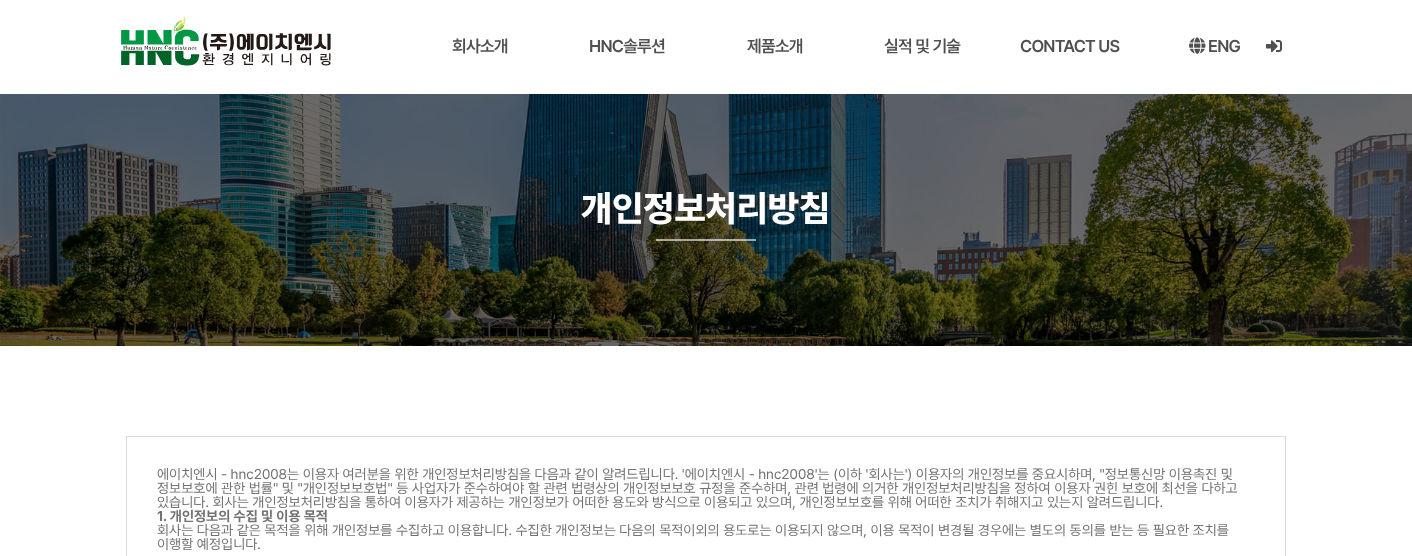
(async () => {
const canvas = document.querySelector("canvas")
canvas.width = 1412
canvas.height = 556
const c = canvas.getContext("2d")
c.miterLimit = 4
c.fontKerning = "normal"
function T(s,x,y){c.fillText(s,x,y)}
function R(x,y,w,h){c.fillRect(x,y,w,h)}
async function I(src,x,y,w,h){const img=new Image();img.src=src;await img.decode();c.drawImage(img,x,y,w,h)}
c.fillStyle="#fff"
R(0,0,1412,556)
await I("1.png",121,16,210,50)
c.letterSpacing="-0.75px"
c.font="600 17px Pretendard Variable"
c.fillStyle="#505050"
T("회사소개",452,52)
T("HNC솔루션",589,52)
T("제품소개",747,52)
T("실적 및 기술",884,52)
T("CONTACT US",1020,52)
await I("2.png",1189,37,17,17)
T("ENG",1208,52)
await I("3.png",1266,40,16,13)
await I("4.png",0,94,1412,252)
c.letterSpacing="0px"
c.font="800 36px Pretendard Variable"
c.fillStyle="#fff"
T("개인정보처리방침",581,221)
c.fillStyle="#ffffff99"
R(656,239,100,2)
c.strokeStyle="#dbdbdb"
c.strokeRect(126.5,436.5,1159,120)
c.font="14px Pretendard Variable"
c.fillStyle="#727272"
T("에이치엔시 - hnc2008는 이용자 여러분을 위한 개인정보처리방침을 다음과 같이 알려드립니다. '에이치엔시 - hnc2008'는 (이하 '회사는') 이용자의 개인정보를 중요시하며, \"정보통신망 이용촉진 및",157,479)
T("정보보호에 관한 법률\" 및 \"개인정보보호법\" 등 사업자가 준수하여야 할 관련 법령상의 개인정보보호 규정을 준수하며, 관련 법령에 의거한 개인정보처리방침을 정하여 이용자 권힌 보호에 최선을 다하고",157,493)
T("있습니다. 회사는 개인정보처리방침을 통하여 이용자가 제공하는 개인정보가 어떠한 용도와 방식으로 이용되고 있으며, 개인정보보호를 위해 어떠한 조치가 취해지고 있는지 알려드립니다.",157,507)
c.font="bold 14px Pretendard Variable"
T("1. 개인정보의 수집 및 이용 목적",157,521)
c.font="14px Pretendard Variable"
T("회사는 다음과 같은 목적을 위해 개인정보를 수집하고 이용합니다. 수집한 개인정보는 다음의 목적이외의 용도로는 이용되지 않으며, 이용 목적이 변경될 경우에는 별도의 동의를 받는 등 필요한 조치를",157,535)
T("이행할 예정입니다.",157,549)
})()
